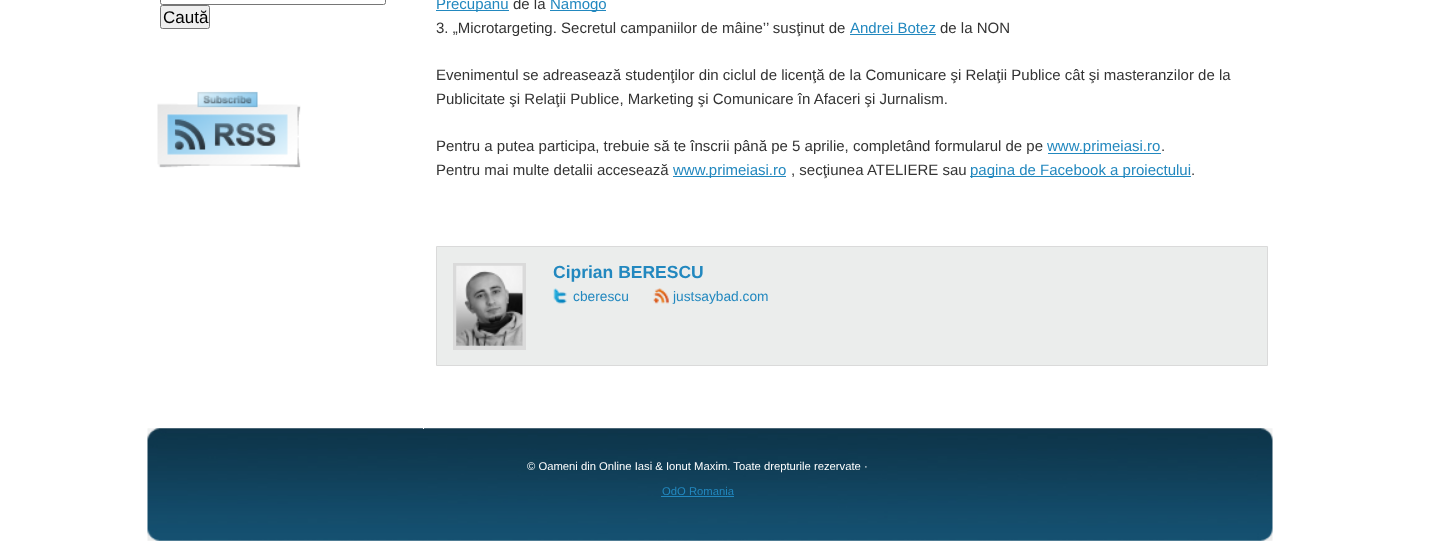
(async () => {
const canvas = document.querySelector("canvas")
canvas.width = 1432
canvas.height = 547
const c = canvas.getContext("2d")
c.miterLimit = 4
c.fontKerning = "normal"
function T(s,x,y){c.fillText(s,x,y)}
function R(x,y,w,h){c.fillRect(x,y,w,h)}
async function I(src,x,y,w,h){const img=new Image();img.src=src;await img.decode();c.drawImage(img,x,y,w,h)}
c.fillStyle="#fff"
R(0,0,1432,547)
c.beginPath()
c.roundRect(160.5,-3.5,225,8,2)
c.strokeStyle="#767676"
c.stroke()
c.fillStyle="#efefef"
c.beginPath()
c.roundRect(160.5,5.5,49,23,2)
c.fill()
c.stroke()
c.font="17px Liberation Sans"
c.fillStyle="#000"
T("Caută",163,23)
await I("1.png",157,91,144,77)
await I("5.png",147,428,1126,113)
c.fillStyle="#fff"
R(423,428,1,1)
c.fillStyle="#2288bf"
R(436,10,73,1)
c.font="15px Liberation Sans"
T("Precupanu",436,9)
c.fillStyle="#333"
T("de la",513,9)
c.fillStyle="#2288bf"
R(550,10,56,1)
T("Namogo",550,9)
c.fillStyle="#333"
T("3. „Microtargeting. Secretul campaniilor de mâine’’ susţinut de",436,33)
c.fillStyle="#2288bf"
T("Andrei Botez",850,33)
R(850,34,86,1)
c.fillStyle="#333"
T("de la NON",940,33)
T("Evenimentul se adreasează studenţilor din ciclul de licenţă de la Comunicare şi Relaţii Publice cât şi masteranzilor de la",436,80)
T("Publicitate şi Relaţii Publice, Marketing şi Comunicare în Afaceri şi Jurnalism.",436,104)
T("Pentru a putea participa, trebuie să te înscrii până pe 5 aprilie, completând formularul de pe",436,151)
c.fillStyle="#2288bf"
R(1048,153,113,1)
T("www.primeiasi.ro",1047,151)
c.fillStyle="#333"
T(".",1161,151)
T("Pentru mai multe detalii accesează",436,175)
c.fillStyle="#2288bf"
R(673,176,113,1)
T("www.primeiasi.ro",673,175)
c.fillStyle="#333"
T(", secţiunea ATELIERE sau",791,175)
c.fillStyle="#2288bf"
R(970,176,221,1)
T("pagina de Facebook a proiectului",970,175)
c.fillStyle="#333"
T(".",1191,175)
c.fillStyle="#ebedec"
c.beginPath()
c.rect(436.5,246.5,831,119)
c.fill()
c.strokeStyle="#dadada"
c.stroke()
c.lineWidth=4
c.strokeRect(455,265,69,83)
await I("2.png",456,265,67,81)
c.font="bold 17.5px Liberation Sans"
c.fillStyle="#2288bf"
T("Ciprian BERESCU",553,278)
await I("3.png",553,288,14,16)
c.font="13.75px Liberation Sans"
T("cberescu",573,301)
await I("4.png",653,288,16,16)
T("justsaybad.com",673,301)
c.font="11.25px Liberation Sans"
c.fillStyle="#fff"
T("© Oameni din Online Iasi & Ionut Maxim. Toate drepturile rezervate ·",527,470)
c.fillStyle="#2288bf"
T("OdO Romania",662,495)
R(661,496,73,1)
})()
